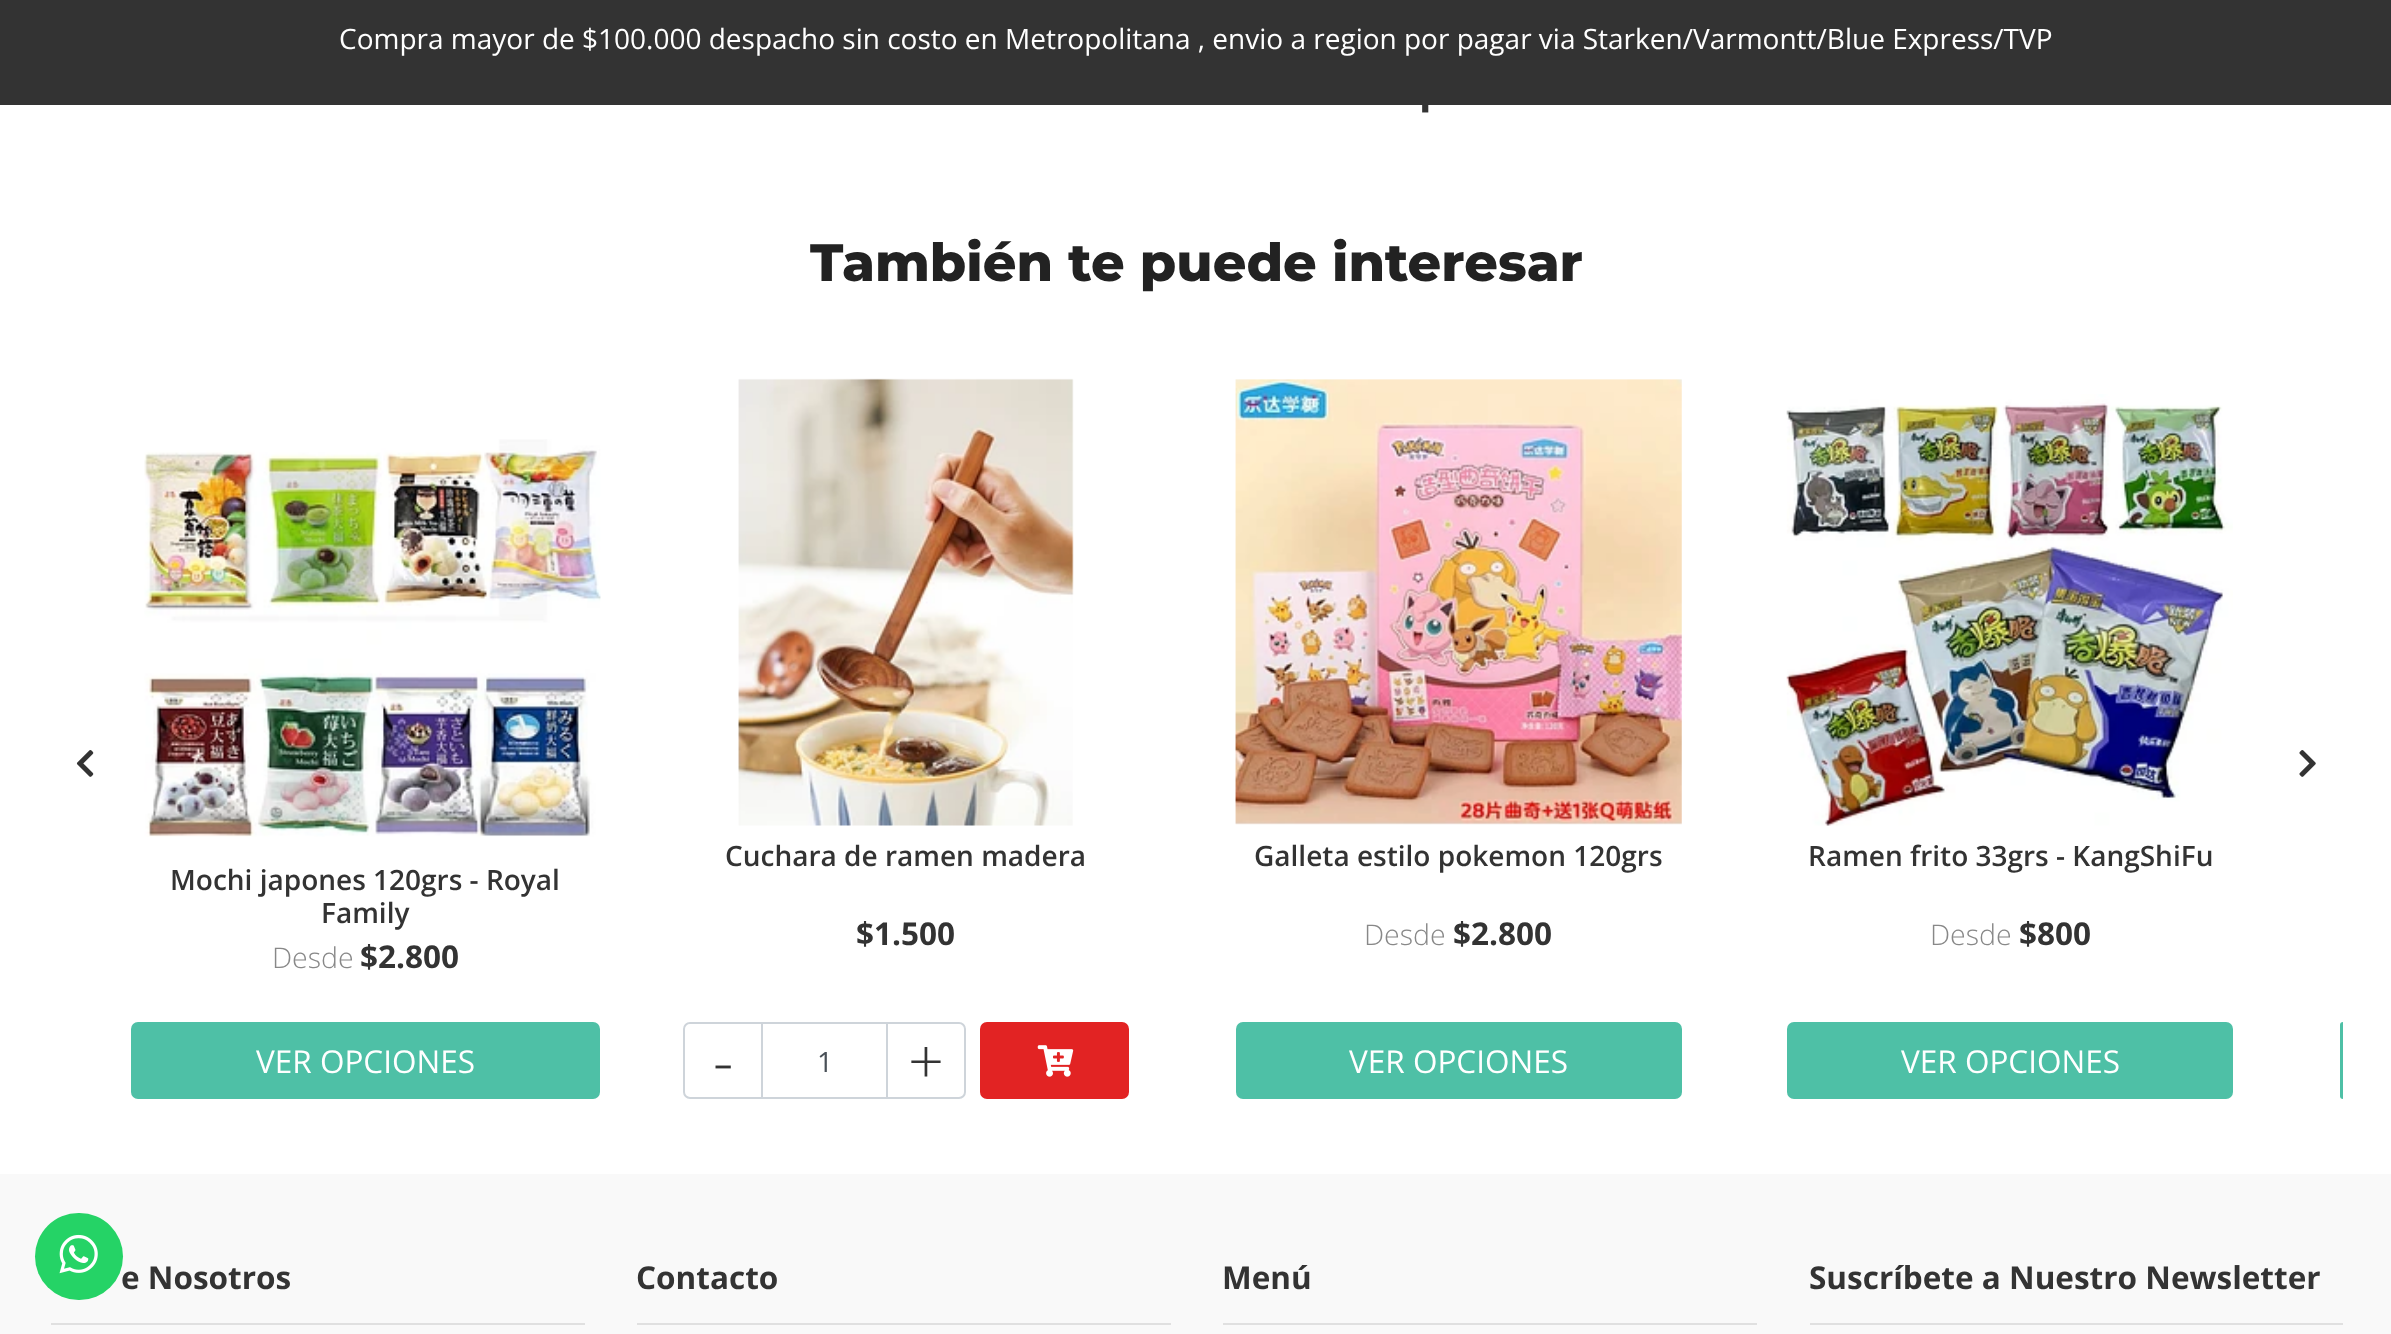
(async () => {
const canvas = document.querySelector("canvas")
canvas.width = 2391
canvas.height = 1334
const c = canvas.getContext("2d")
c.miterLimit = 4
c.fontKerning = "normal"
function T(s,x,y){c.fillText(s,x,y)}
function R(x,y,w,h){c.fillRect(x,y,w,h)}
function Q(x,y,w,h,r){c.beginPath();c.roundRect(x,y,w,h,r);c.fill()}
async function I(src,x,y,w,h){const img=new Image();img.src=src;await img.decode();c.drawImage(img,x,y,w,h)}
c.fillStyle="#fff"
R(0,0,2391,1334)
c.fillStyle="#333"
R(0,0,2391,105)
c.font="28px Open Sans"
c.fillStyle="#fff"
T("Compra mayor de $100.000 despacho sin costo en Metropolitana , envio a region por pagar via Starken/Varmontt/Blue Express/TVP",339,49)
await I("1.png",1422,105,7,8)
c.font="800 52.5px Montserrat"
c.fillStyle="#222"
T("También te puede interesar",810,281)
await I("2.png",76,750,18,27)
await I("3.png",2299,750,17,27)
await I("4.png",144,439,457,398)
c.font="600 28px Open Sans"
c.fillStyle="#333"
T("Mochi japones 120grs - Royal",170,890)
T("Family",321,923)
c.font="300 28.5px Open Sans"
c.fillStyle="#888"
T("Desde",272,968)
c.font="bold 31.5px Open Sans"
c.fillStyle="#333"
T("$2.800",360,968)
c.fillStyle="#4ec0a6"
Q(131,1022,469,77,7)
c.font="31.5px Open Sans"
c.fillStyle="#fff"
T("VER OPCIONES",256,1073)
await I("5.png",738,378,336,448)
c.font="600 28px Open Sans"
c.fillStyle="#333"
T("Cuchara de ramen madera",725,866)
c.font="bold 31.5px Open Sans"
T("$1.500",856,945)
c.beginPath()
c.roundRect(684,1023,281,75,6)
c.strokeStyle="#ced4da"
c.lineWidth=2
c.stroke()
c.fillStyle="#ced4da"
R(761,1024,2,73)
c.font="300 63px Open Sans"
c.fillStyle="#333"
T("-",713,1084)
c.font="28px Open Sans"
c.fillStyle="#495057"
T("1",817,1072)
c.fillStyle="#ced4da"
R(886,1024,2,73)
c.font="300 63px Open Sans"
c.fillStyle="#333"
T("+",908,1084)
c.fillStyle="#e22323"
Q(980,1022,149,77,7)
await I("6.png",1037,1045,37,32)
await I("7.png",1235,379,447,446)
c.font="600 28px Open Sans"
c.fillStyle="#333"
T("Galleta estilo pokemon 120grs",1254,866)
c.font="300 28.5px Open Sans"
c.fillStyle="#888"
T("Desde",1364,945)
c.font="bold 31.5px Open Sans"
c.fillStyle="#333"
T("$2.800",1453,945)
c.fillStyle="#4ec0a6"
Q(1236,1022,446,77,7)
c.font="31.5px Open Sans"
c.fillStyle="#fff"
T("VER OPCIONES",1349,1073)
await I("8.png",1786,394,447,432)
c.font="600 28px Open Sans"
c.fillStyle="#333"
T("Ramen frito 33grs - KangShiFu",1808,866)
c.font="300 28.5px Open Sans"
c.fillStyle="#888"
T("Desde",1930,945)
c.font="bold 31.5px Open Sans"
c.fillStyle="#333"
T("$800",2019,945)
c.fillStyle="#4ec0a6"
Q(1787,1022,446,77,7)
c.font="31.5px Open Sans"
c.fillStyle="#fff"
T("VER OPCIONES",1901,1073)
c.fillStyle="#4ec0a6"
c.beginPath()
c.roundRect(2340,1022,3,77,[7,0,0,7])
c.fill()
c.fillStyle="#f9f9f9"
R(0,1174,2391,160)
c.font="bold 31.5px Open Sans"
c.fillStyle="#333"
T("e Nosotros",121,1289)
c.fillStyle="#25d366"
Q(35,1213,88,87,43.5)
await I("9.png",59,1234,39,40)
c.fillStyle="#e0e0e0"
R(51,1323,534,2)
R(637,1323,534,2)
c.fillStyle="#333"
T("Contacto",636,1289)
c.fillStyle="#e0e0e0"
R(1223,1323,534,2)
c.fillStyle="#333"
T("Menú",1222,1289)
c.fillStyle="#e0e0e0"
R(1810,1323,533,2)
c.fillStyle="#333"
T("Suscríbete a Nuestro Newsletter",1809,1289)
})()
